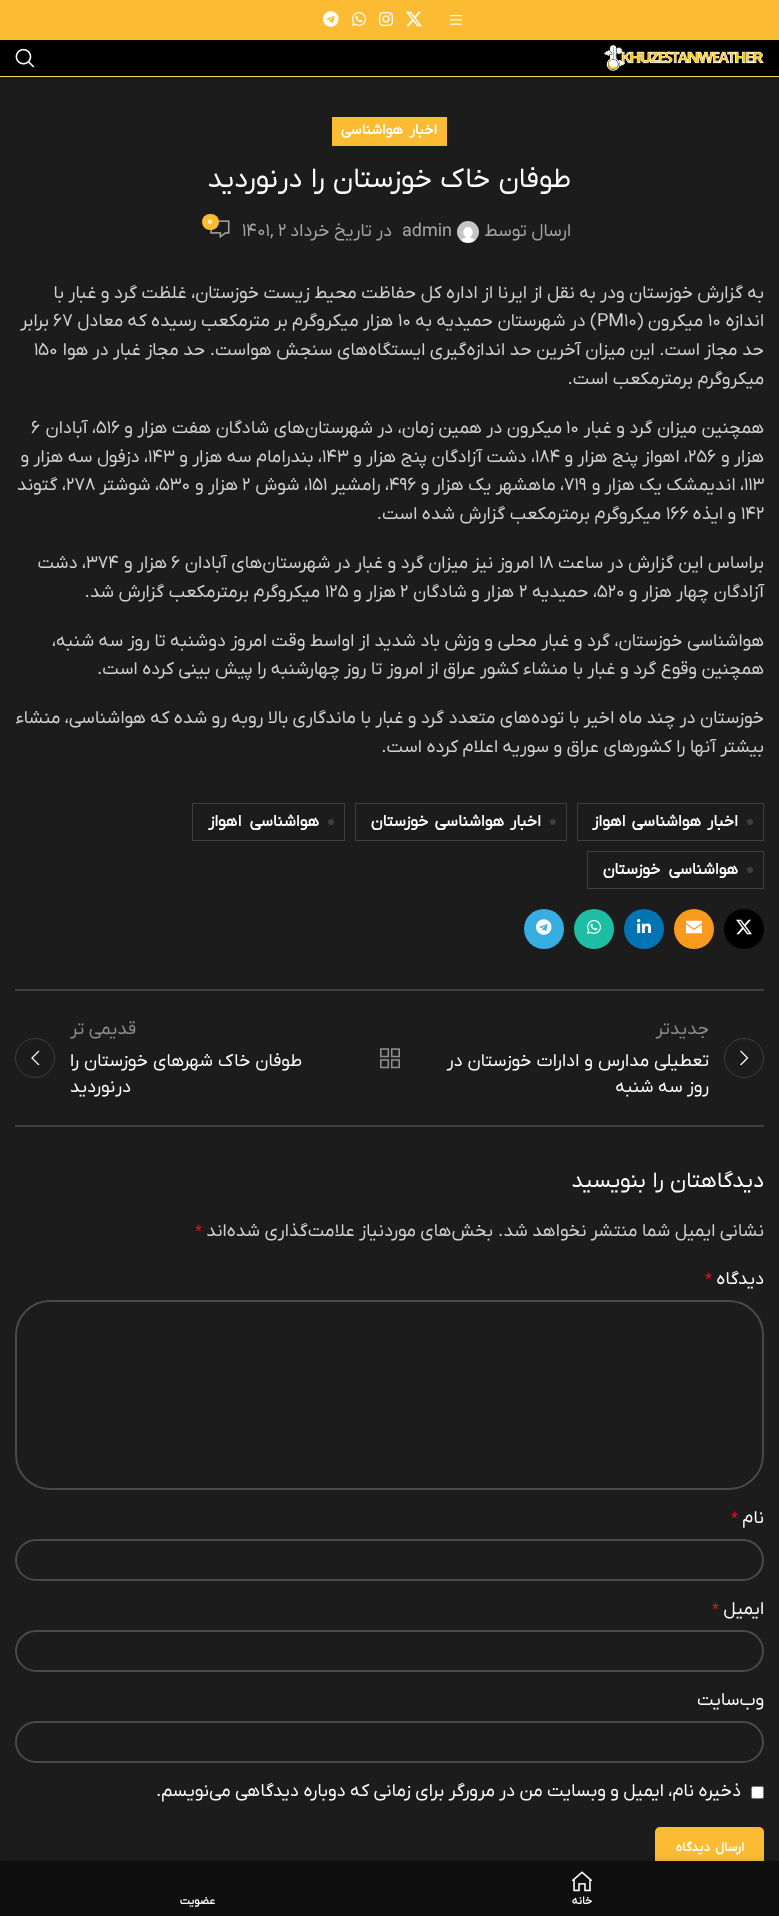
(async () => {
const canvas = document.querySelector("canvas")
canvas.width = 779
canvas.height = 1916
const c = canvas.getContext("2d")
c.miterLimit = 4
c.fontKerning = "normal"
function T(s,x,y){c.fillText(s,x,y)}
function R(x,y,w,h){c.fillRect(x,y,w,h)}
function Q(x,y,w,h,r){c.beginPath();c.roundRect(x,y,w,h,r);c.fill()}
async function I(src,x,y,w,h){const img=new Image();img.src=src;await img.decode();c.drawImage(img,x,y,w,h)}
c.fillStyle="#1c1c1c"
R(0,0,779,1916)
c.fillStyle="#fbbc34"
R(0,0,779,40)
await I("1.png",449,15,14,10)
await I("2.png",406,11,16,16)
await I("3.png",379,12,14,14)
await I("4.png",352,12,14,14)
await I("5.png",323,11,16,16)
c.fillStyle="#000"
R(0,40,779,36)
c.fillStyle="#ffd841"
R(0,76,779,1)
await I("6.png",604,45,160,26)
await I("7.png",15,48,20,20)
c.fillStyle="#fbbc34"
R(332,117,115,29)
c.wordSpacing="3px"
c.direction="rtl"
c.font="bold 14.5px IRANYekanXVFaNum"
c.fillStyle="#fff"
T("اخبار هواشناسی",437,134)
c.wordSpacing="1px"
c.font="28px IRANYekanXVFaNum"
T("طوفان خاک خوزستان را درنوردید",571,187)
await I("8.png",210,220,20,19)
c.fillStyle="#fbbc34"
Q(202,214,17,16,8)
c.wordSpacing="0px"
c.direction="ltr"
c.font="12px IRANYekanXVFaNum"
c.fillStyle="#fff"
T("۰",207,224)
c.direction="rtl"
c.font="18px IRANYekanXVFaNum"
c.fillStyle="#a4a4a4"
T("ارسال توسط",571,236)
await I("9.png",457,221,22,22)
c.direction="ltr"
T("admin",402,236)
c.direction="rtl"
T("در تاریخ خرداد",392,236)
c.direction="ltr"
T("۱۴۰۱, ۲",242,236)
c.direction="rtl"
c.fillStyle="#d2d2d2"
T("به گزارش",764,298)
T("خوزستان ودر به نقل از ایرنا از اداره کل حفاظت محیط زیست خوزستان، غلظت گرد و غبار با",693,298)
T("اندازه",764,326)
c.direction="ltr"
T("۱۰",708,326)
c.direction="rtl"
T("میکرون (",703,326)
c.direction="ltr"
T("PM۱۰",597,326)
c.direction="rtl"
T(") در شهرستان حمیدیه به",597,326)
c.direction="ltr"
T("۱۰",398,326)
c.direction="rtl"
T("هزار میکروگرم بر مترمکعب رسیده که معادل",393,326)
c.direction="ltr"
T("۶۷",53,326)
c.direction="rtl"
T("برابر",49,326)
T("حد مجاز است. این میزان آخرین حد اندازه‌گیری ایستگاه‌های سنجش هواست. حد مجاز غبار در هوا",764,355)
c.direction="ltr"
T("۱۵۰",34,355)
c.direction="rtl"
T("میکروگرم برمترمکعب است.",764,384)
T("همچنین میزان گرد و غبار",764,433)
c.direction="ltr"
T("۱۰",566,433)
c.direction="rtl"
T("میکرون در همین زمان، در شهرستان‌های شادگان هفت هزار و",562,433)
c.direction="ltr"
T("۵۱۶",96,433)
c.direction="rtl"
T("، آبادان",96,433)
c.direction="ltr"
T("۶",31,433)
c.direction="rtl"
T("هزار و",764,462)
c.direction="ltr"
T("۲۵۶",688,462)
c.direction="rtl"
T("، اهواز پنج هزار و",688,462)
c.direction="ltr"
T("۱۸۴",535,462)
c.direction="rtl"
T("، دشت آزادگان پنج هزار و",535,462)
c.direction="ltr"
T("۱۴۳",322,462)
c.direction="rtl"
T("، بندرامام سه هزار و",322,462)
c.direction="ltr"
T("۱۴۳",148,462)
c.direction="rtl"
T("، دزفول سه هزار و",148,462)
c.direction="ltr"
T("۱۱۳",744,490)
c.direction="rtl"
T("، اندیمشک یک هزار و",744,490)
c.direction="ltr"
T("۷۱۹",564,490)
c.direction="rtl"
T("، ماهشهر یک هزار و",564,490)
c.direction="ltr"
T("۴۹۶",389,490)
c.direction="rtl"
T("، رامشیر",389,490)
c.direction="ltr"
T("۱۵۱",308,490)
c.direction="rtl"
T("، شوش",308,490)
c.direction="ltr"
T("۲",242,490)
c.direction="rtl"
T("هزار و",238,490)
c.direction="ltr"
T("۵۳۰",159,490)
c.direction="rtl"
T("، شوشتر",159,490)
c.direction="ltr"
T("۲۷۸",66,490)
c.direction="rtl"
T("، گتوند",66,490)
c.direction="ltr"
T("۱۴۲",741,519)
c.direction="rtl"
T("و ایذه",736,519)
c.direction="ltr"
T("۱۶۶",666,519)
c.direction="rtl"
T("میکروگرم برمترمکعب گزارش شده است.",661,519)
T("براساس این گزارش در ساعت",764,568)
c.direction="ltr"
T("۱۸",539,568)
c.direction="rtl"
T("امروز نیز میزان گرد و غبار در شهرستان‌های آبادان",534,568)
c.direction="ltr"
T("۶",171,568)
c.direction="rtl"
T("هزار و",167,568)
c.direction="ltr"
T("۳۷۴",86,568)
c.direction="rtl"
T("، دشت",86,568)
T("آزادگان چهار هزار و",764,597)
c.direction="ltr"
T("۵۲۰",597,597)
c.direction="rtl"
T("، حمیدیه",597,597)
c.direction="ltr"
T("۲",519,597)
c.direction="rtl"
T("هزار و شادگان",514,597)
c.direction="ltr"
T("۲",400,597)
c.direction="rtl"
T("هزار و",396,597)
c.direction="ltr"
T("۱۲۵",325,597)
c.direction="rtl"
T("میکروگرم برمترمکعب گزارش شد.",320,597)
T("هواشناسی خوزستان، گرد و غبار محلی و وزش باد شدید از اواسط وقت امروز دوشنبه تا روز سه شنبه،",764,646)
T("همچنین وقوع گرد و غبار با منشاء کشور عراق از امروز تا روز چهارشنبه را پیش بینی کرده است.",764,674)
T("خوزستان در چند ماه اخیر با توده‌های متعدد گرد و غبار با ماندگاری بالا روبه رو شده که هواشناسی، منشاء",764,723)
T("بیشتر آنها را کشورهای عراق و سوریه اعلام کرده است.",764,752)
c.strokeStyle="#3e3e3e"
c.strokeRect(577.5,803.5,186,37)
c.fillStyle="#3e3e3e"
c.beginPath()
c.arc(750,822,3,0,7)
c.fill()
c.wordSpacing="2px"
c.font="bold 16.25px IRANYekanXVFaNum"
c.fillStyle="#fff"
T("اخبار هواشناسی اهواز",738,826)
c.strokeRect(355.5,803.5,211,37)
c.fillStyle="#3e3e3e"
c.beginPath()
c.arc(553,822,3,0,7)
c.fill()
c.fillStyle="#fff"
T("اخبار هواشناسی خوزستان",541,826)
c.strokeRect(192.5,803.5,152,37)
c.fillStyle="#3e3e3e"
c.beginPath()
c.arc(331,822,3,0,7)
c.fill()
c.wordSpacing="4px"
c.fillStyle="#fff"
T("هواشناسی اهواز",319,826)
c.strokeRect(587.5,851.5,176,37)
c.fillStyle="#3e3e3e"
c.beginPath()
c.arc(750,870,3,0,7)
c.fill()
c.fillStyle="#fff"
T("هواشناسی خوزستان",738,874)
c.fillStyle="#000"
c.beginPath()
c.arc(744,929,20,0,7)
c.fill()
await I("10.png",736,919,16,16)
c.fillStyle="#f89a1e"
c.beginPath()
c.arc(694,929,20,0,7)
c.fill()
await I("11.png",686,920,16,14)
c.fillStyle="#0274b3"
c.beginPath()
c.arc(644,929,20,0,7)
c.fill()
await I("12.png",637,919,14,14)
c.fillStyle="#1ebea5"
c.beginPath()
c.arc(594,929,20,0,7)
c.fill()
await I("13.png",587,920,14,14)
c.fillStyle="#37aee2"
c.beginPath()
c.arc(544,929,20,0,7)
c.fill()
await I("14.png",536,919,16,16)
c.fillStyle="#3e3e3e"
R(15,989,749,2)
R(15,1125,749,2)
c.wordSpacing="0px"
c.font="18px IRANYekanXVFaNum"
c.fillStyle="#8e8e8e"
T("جدیدتر",709,1034)
c.beginPath()
c.arc(744,1058,19.5,0,7)
c.stroke()
await I("15.png",740,1050,9,16)
c.wordSpacing="0.5px"
c.fillStyle="#fff"
T("تعطیلی مدارس و ادارات خوزستان در",709,1066)
c.wordSpacing="0px"
T("روز سه شنبه",709,1092)
await I("16.png",380,1048,20,21)
c.fillStyle="#8e8e8e"
T("قدیمی تر",136,1034)
c.wordSpacing="0.5px"
c.fillStyle="#fff"
T("طوفان خاک شهرهای خوزستان را",302,1066)
c.wordSpacing="0px"
T("درنوردید",131,1092)
c.beginPath()
c.arc(35,1058,19.5,0,7)
c.stroke()
await I("17.png",31,1050,9,16)
c.wordSpacing="1px"
c.font="22px IRANYekanXVFaNum"
T("دیدگاهتان را بنویسید",764,1187)
c.wordSpacing="0px"
c.font="18px IRANYekanXVFaNum"
c.fillStyle="#d2d2d2"
T("نشانی ایمیل شما منتشر نخواهد شد.",764,1236)
T("بخش‌های موردنیاز علامت‌گذاری شده‌اند",493,1236)
c.direction="ltr"
c.font="16px IRANYekanXVFaNum"
c.fillStyle="#e01020"
T("*",195,1236)
c.direction="rtl"
c.font="18px IRANYekanXVFaNum"
c.fillStyle="#fff"
T("دیدگاه",764,1284)
c.direction="ltr"
c.font="16px IRANYekanXVFaNum"
c.fillStyle="#e01020"
T("*",705,1284)
c.beginPath()
c.roundRect(16,1301,747,188,34)
c.strokeStyle="#494949"
c.lineWidth=2
c.stroke()
c.direction="rtl"
c.font="18px IRANYekanXVFaNum"
c.fillStyle="#fff"
T("نام",764,1523)
c.direction="ltr"
c.font="16px IRANYekanXVFaNum"
c.fillStyle="#e01020"
T("*",731,1523)
c.beginPath()
c.roundRect(16,1540,747,40,20)
c.stroke()
c.direction="rtl"
c.font="18px IRANYekanXVFaNum"
c.fillStyle="#fff"
T("ایمیل",764,1614)
c.direction="ltr"
c.font="16px IRANYekanXVFaNum"
c.fillStyle="#e01020"
T("*",712,1614)
c.beginPath()
c.roundRect(16,1631,747,40,20)
c.stroke()
c.direction="rtl"
c.font="18px IRANYekanXVFaNum"
c.fillStyle="#fff"
T("وب‌سایت",764,1705)
c.beginPath()
c.roundRect(16,1722,747,40,20)
c.stroke()
c.beginPath()
c.roundRect(751.5,1786.5,12,12,1.5)
c.fill()
c.strokeStyle="#767676"
c.lineWidth=1
c.stroke()
T("ذخیره نام، ایمیل و وبسایت من در مرورگر برای زمانی که دوباره دیدگاهی می‌نویسم.",741,1796)
c.fillStyle="#fbbc34"
Q(655,1827,109,42,5)
c.wordSpacing="2px"
c.font="bold 13px IRANYekanXVFaNum"
c.fillStyle="#fff"
T("ارسال دیدگاه",744,1851)
c.fillStyle="#0000001f"
c.filter="blur(4.5px)"
c.beginPath()
c.rect(0,1861,779,55)
c.fill()
c.filter="none"
c.fillStyle="#0f0f0f"
R(0,1861,779,55)
await I("18.png",572,1871,20,21)
c.wordSpacing="0px"
c.font="bold 11px IRANYekanXVFaNum"
c.fillStyle="#fff"
T("خانه",592,1904)
T("عضویت",215,1904)
})()
